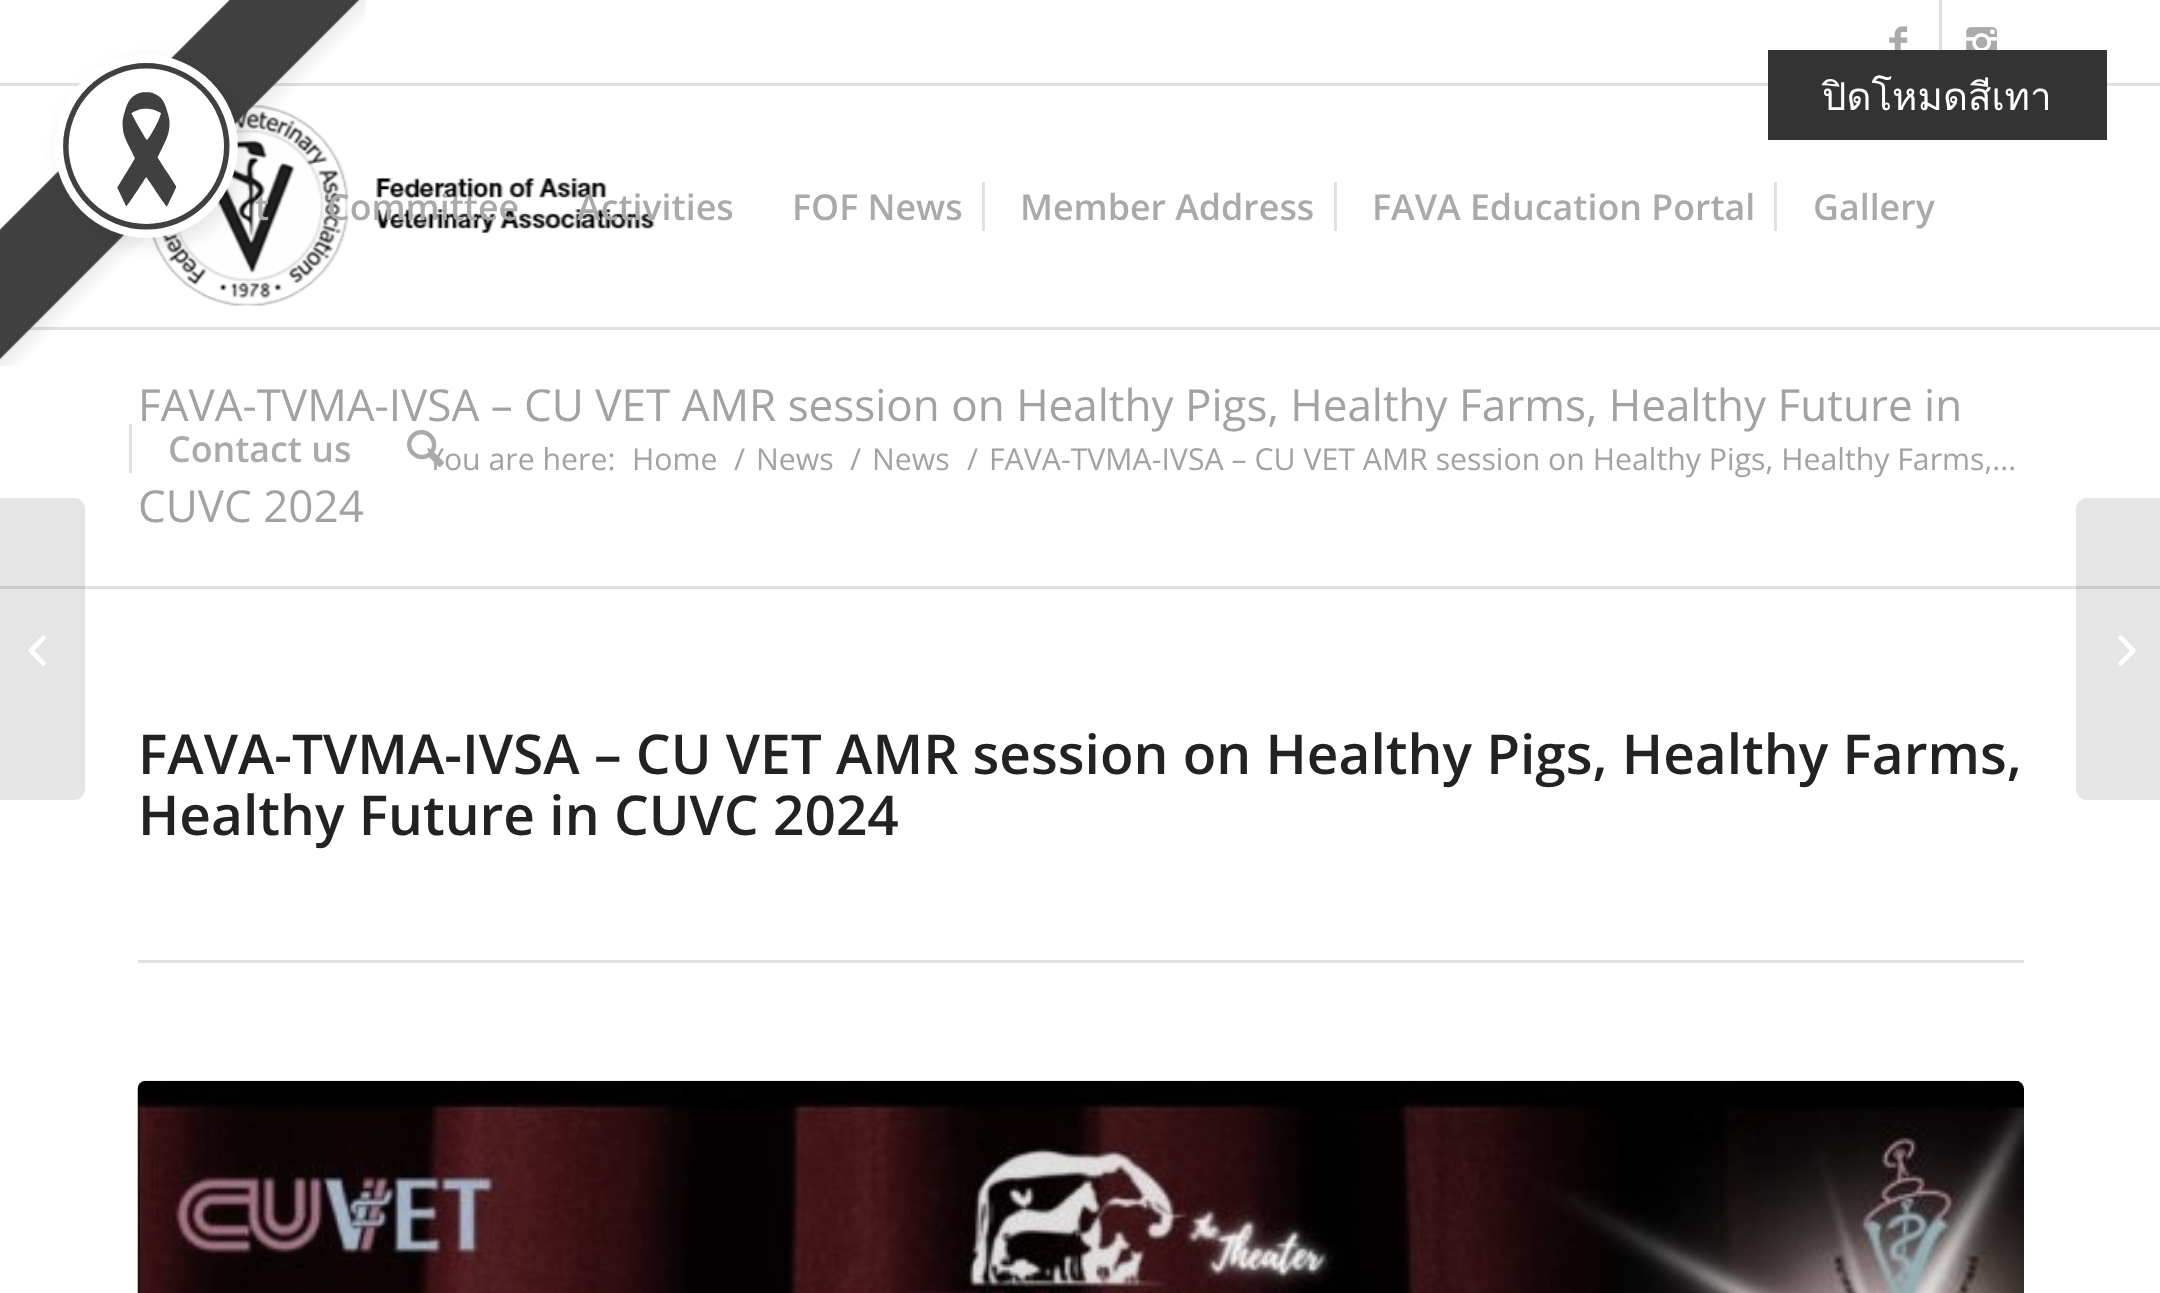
(async () => {
const canvas = document.querySelector("canvas")
canvas.width = 2160
canvas.height = 1293
const c = canvas.getContext("2d")
c.miterLimit = 4
c.fontKerning = "normal"
function T(s,x,y){c.fillText(s,x,y)}
function R(x,y,w,h){c.fillRect(x,y,w,h)}
async function I(src,x,y,w,h){const img=new Image();img.src=src;await img.decode();c.drawImage(img,x,y,w,h)}
let path
c.fillStyle="#fff"
R(0,0,2160,1293)
c.fillStyle="#e1e1e1"
R(0,83,2160,3)
R(28,327,2132,3)
await I("4.png",152,105,503,201)
c.font="600 35.75px Open Sans"
c.fillStyle="#aaa"
T("t",255,220)
T("Committee",327,220)
await I("1.png",0,0,366,366)
c.fillStyle="#333"
R(1768,50,339,90)
c.font="38.5px Loma"
c.fillStyle="#fff"
T("ปิดโหมดสีเทา",1822,110)
c.fillStyle="#e1e1e1"
R(1939,0,3,50)
await I("2.png",1889,26,19,24)
await I("3.png",1966,27,31,23)
c.font="600 35.75px Open Sans"
c.fillStyle="#aaa"
T("Activities",577,220)
T("FOF News",792,220)
T("Member Address",1020,220)
c.fillStyle="#e1e1e1"
R(982,182,3,49)
c.fillStyle="#aaa"
T("FAVA Education Portal",1372,220)
c.fillStyle="#e1e1e1"
R(1334,182,3,49)
c.fillStyle="#aaa"
T("Gallery",1813,220)
c.fillStyle="#e1e1e1"
R(1774,182,3,49)
c.fillStyle="#aaa"
T("Contact us",168,462)
c.fillStyle="#e1e1e1"
R(129,424,3,49)
c.font="44px Open Sans"
c.fillStyle="#a2a2a2"
T("FAVA-TVMA-IVSA – CU VET AMR session on Healthy Pigs, Healthy Farms, Healthy Future in",138,421)
c.font="30.25px Open Sans"
T("You are here:",427,470)
await I("5.png",407,429,37,38)
c.fillStyle="#e1e1e1"
R(0,586,2160,3)
c.fillStyle="#0000001a"
c.beginPath()
c.roundRect(0,498,85,302,[0,11,11,0])
c.fill()
await I("6.png",28,635,18,31)
c.font="44px Open Sans"
c.fillStyle="#a2a2a2"
T("CUVC 2024",138,522)
c.font="30.25px Open Sans"
T("Home",632,470)
T("/",734,470)
T("News",756,470)
T("/",850,470)
T("News",872,470)
T("/",967,470)
T("FAVA-TVMA-IVSA – CU VET AMR session on Healthy Pigs, Healthy Farms,...",989,470)
c.font="600 55px Open Sans"
c.fillStyle="#222"
T("FAVA-TVMA-IVSA – CU VET AMR session on Healthy Pigs, Healthy Farms,",138,774)
T("Healthy Future in CUVC 2024",138,835)
c.fillStyle="#e1e1e1"
R(138,960,1886,3)
await I("7.png",137,1080,1887,213)
c.fillStyle="#0000001a"
path = new Path2D("M2087 498h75v302h-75c-6 0-11-5-11-11v-280c0-6 5-11 11-11z")
c.fill(path)
await I("8.png",2118,635,18,31)
})()
